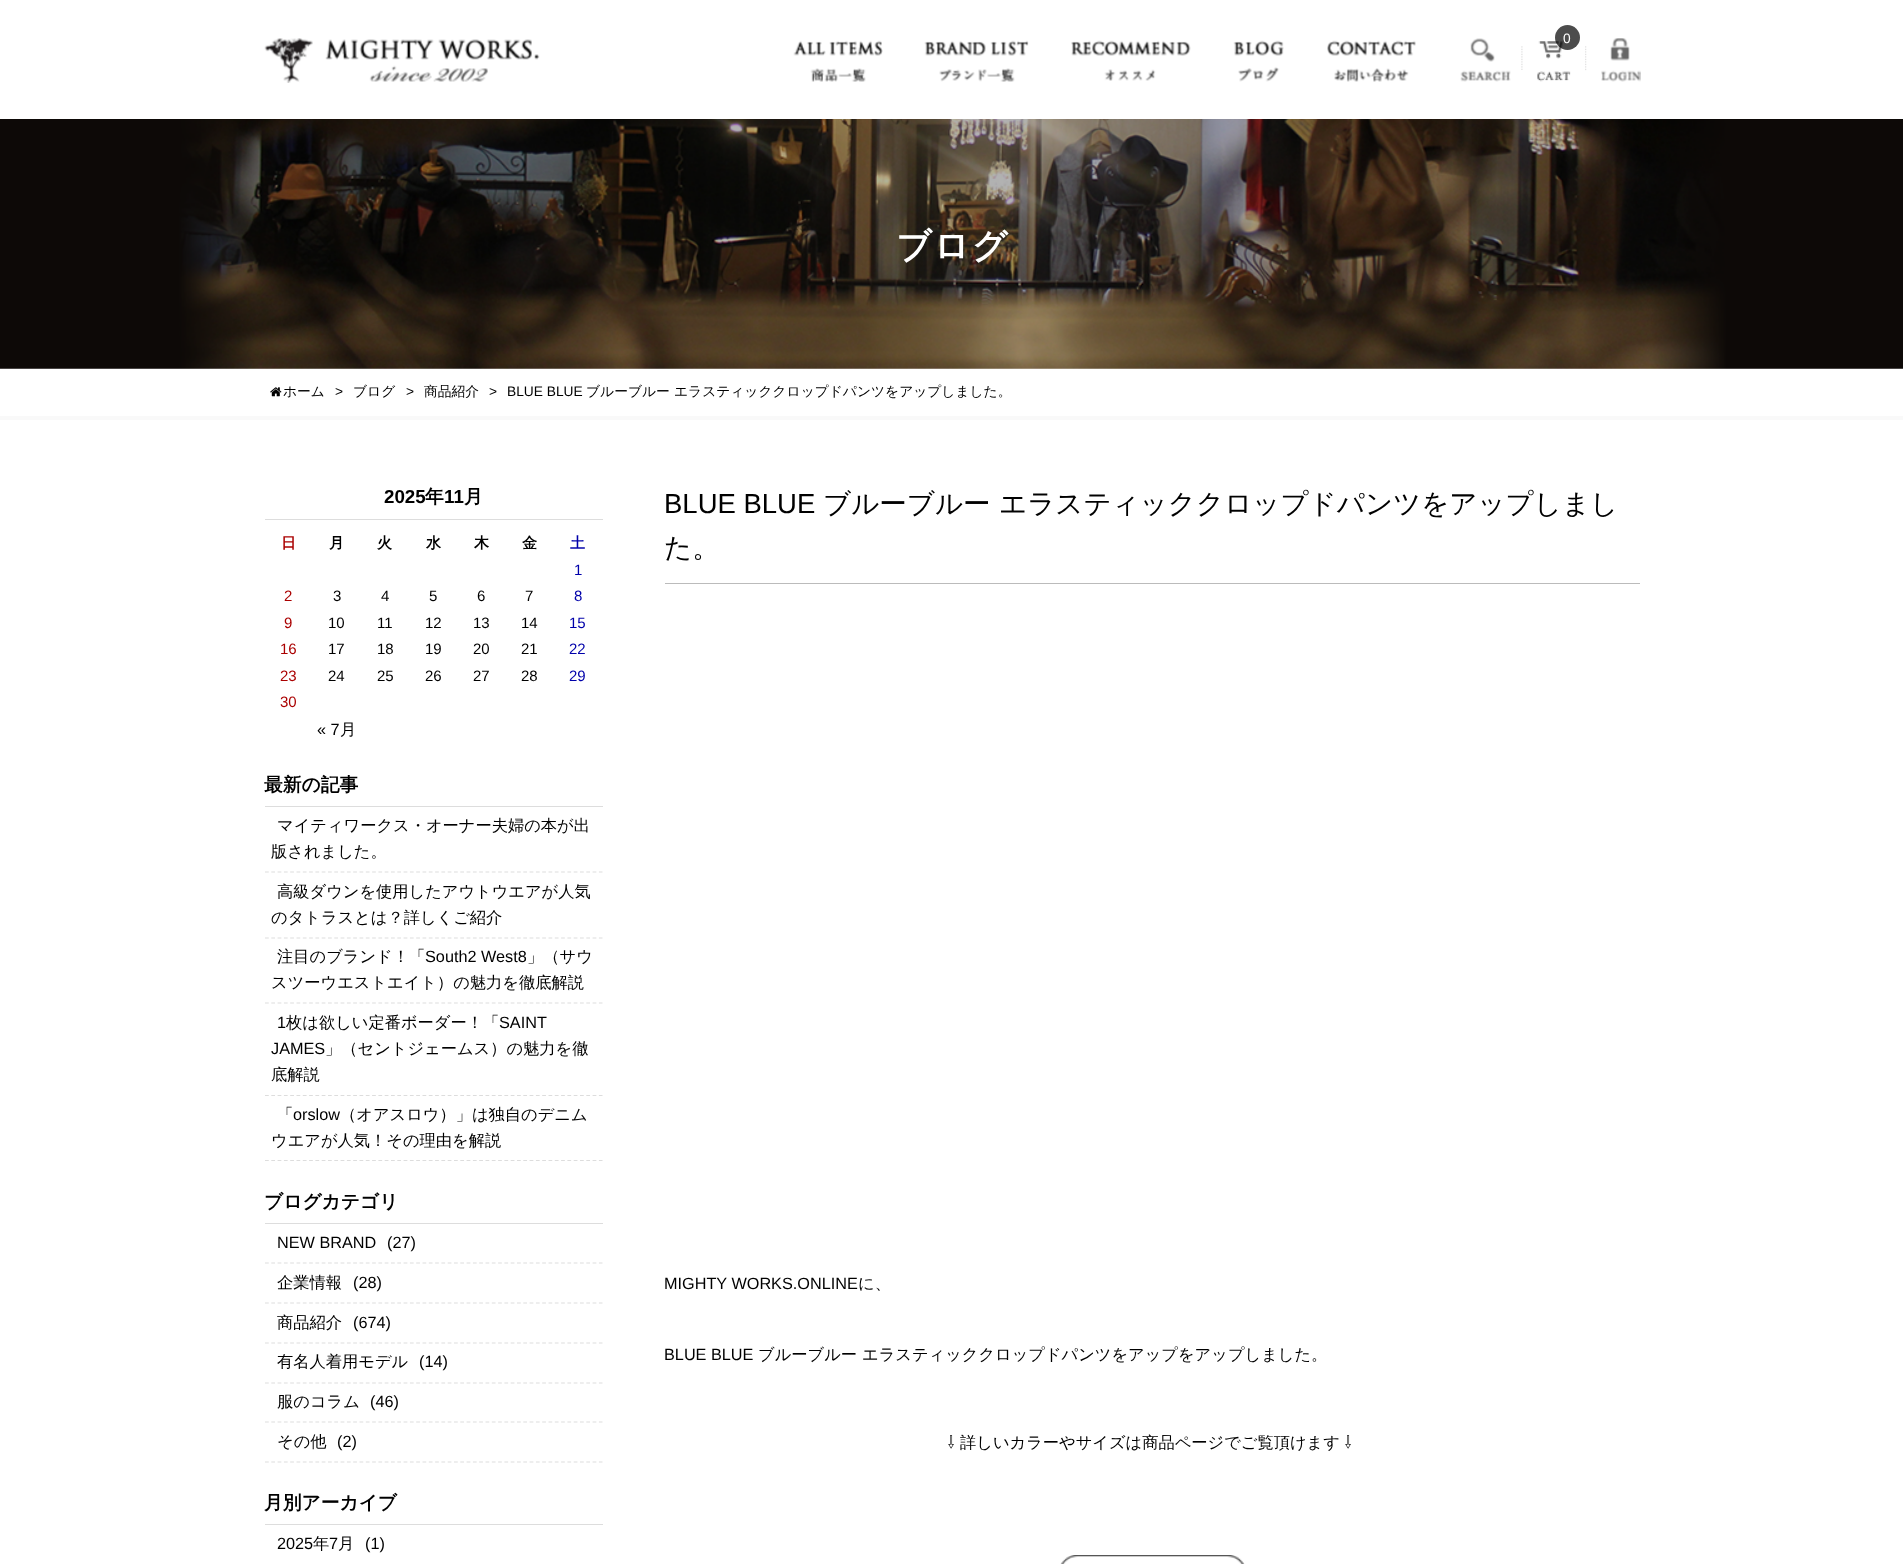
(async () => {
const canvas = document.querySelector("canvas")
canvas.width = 1903
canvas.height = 1564
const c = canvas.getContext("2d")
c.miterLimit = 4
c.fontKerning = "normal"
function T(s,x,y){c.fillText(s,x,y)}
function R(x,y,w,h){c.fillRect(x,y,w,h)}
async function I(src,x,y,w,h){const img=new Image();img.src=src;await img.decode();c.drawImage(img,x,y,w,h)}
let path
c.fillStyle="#fff"
R(0,0,1903,1564)
await I("1.png",264,38,276,45)
await I("2.png",793,40,90,42)
await I("3.png",924,40,105,42)
await I("4.png",1071,40,120,41)
await I("5.png",1233,40,51,42)
await I("6.png",1327,40,89,42)
await I("7.png",1521,46,2,24)
await I("8.png",1460,38,51,44)
await I("9.png",1585,46,2,25)
await I("10.png",1537,41,34,41)
c.fillStyle="#000000b3"
c.beginPath()
c.arc(1567.5,37.5,12.5,0,7)
c.fill()
c.font="13.75px Liberation Sans"
c.fillStyle="#fff"
T("0",1563,43)
await I("11.png",1601,38,40,44)
await I("12.png",0,119,1903,250)
c.letterSpacing="2px"
c.font="bold 35px WenQuanYi Zen Hei"
T("ブログ",896,258)
c.fillStyle="#f9f9f9"
R(0,416,1903,4)
await I("13.png",270,387,12,10)
c.letterSpacing="0px"
c.font="500 13.75px WenQuanYi Zen Hei"
c.fillStyle="#000"
T("ホーム",283,396)
c.font="13.75px Liberation Sans"
T(">",335,396)
c.font="500 13.75px WenQuanYi Zen Hei"
T("ブログ",353,396)
c.font="13.75px Liberation Sans"
T(">",406,396)
c.font="500 13.75px WenQuanYi Zen Hei"
T("商品紹介",424,396)
c.font="13.75px Liberation Sans"
T(">",489,396)
T("BLUE BLUE",507,396)
c.font="500 13.75px WenQuanYi Zen Hei"
T("ブルーブルー",586,396)
T("エラスティッククロップドパンツをアップしました。",674,396)
c.fillStyle="#ddd"
R(265,519,338,1)
c.font="bold 18.75px Liberation Sans"
c.fillStyle="#000"
T("2025",384,503)
c.font="bold 18.75px WenQuanYi Zen Hei"
T("年",425,503)
c.font="bold 18.75px Liberation Sans"
T("11",444,503)
c.font="bold 18.75px WenQuanYi Zen Hei"
T("月",464,503)
c.font="bold 15px WenQuanYi Zen Hei"
c.fillStyle="#a00"
T("日",281,548)
c.fillStyle="#000"
T("月",329,548)
T("火",377,548)
T("水",426,548)
T("木",474,548)
T("金",522,548)
c.fillStyle="#00a"
T("土",570,548)
c.font="15px Liberation Sans"
T("1",574,575)
c.fillStyle="#a00"
T("2",284,601)
c.fillStyle="#000"
T("3",333,601)
T("4",381,601)
T("5",429,601)
T("6",477,601)
T("7",525,601)
c.fillStyle="#00a"
T("8",574,601)
c.fillStyle="#a00"
T("9",284,628)
c.fillStyle="#000"
T("10",328,628)
T("11",377,628)
T("12",425,628)
T("13",473,628)
T("14",521,628)
c.fillStyle="#00a"
T("15",569,628)
c.fillStyle="#a00"
T("16",280,654)
c.fillStyle="#000"
T("17",328,654)
T("18",377,654)
T("19",425,654)
T("20",473,654)
T("21",521,654)
c.fillStyle="#00a"
T("22",569,654)
c.fillStyle="#a00"
T("23",280,681)
c.fillStyle="#000"
T("24",328,681)
T("25",377,681)
T("26",425,681)
T("27",473,681)
T("28",521,681)
c.fillStyle="#00a"
T("29",569,681)
c.fillStyle="#a00"
T("30",280,707)
c.font="16.25px Liberation Sans"
c.fillStyle="#000"
T("« 7",317,735)
c.font="500 16.25px WenQuanYi Zen Hei"
T("月",340,735)
c.fillStyle="#ddd"
R(265,806,338,1)
c.font="bold 18.75px WenQuanYi Zen Hei"
c.fillStyle="#000"
T("最新の記事",264,791)
path = new Path2D("M265 872h337.5")
c.strokeStyle="#ddd"
c.lineWidth=1.2
c.setLineDash([3.75,2.55])
c.stroke(path)
c.font="500 16.25px WenQuanYi Zen Hei"
T("マイティワークス・オーナー夫婦の本が出",277,831)
T("版されました。",271,857)
path = new Path2D("M265 938h337.5")
c.stroke(path)
T("高級ダウンを使用したアウトウエアが人気",277,897)
T("のタトラスとは？詳しくご紹介",271,923)
path = new Path2D("M265 1003h337.5")
c.stroke(path)
T("注目のブランド！「",277,962)
c.font="16.25px Liberation Sans"
T("South2 West8",425,962)
c.font="500 16.25px WenQuanYi Zen Hei"
T("」（サウ",527,962)
T("スツーウエストエイト）の魅力を徹底解説",271,988)
path = new Path2D("M265 1095.5h337.5")
c.stroke(path)
c.font="16.25px Liberation Sans"
T("1",277,1028)
c.font="500 16.25px WenQuanYi Zen Hei"
T("枚は欲しい定番ボーダー！「",286,1028)
c.font="16.25px Liberation Sans"
T("SAINT",499,1028)
T("JAMES",271,1054)
c.font="500 16.25px WenQuanYi Zen Hei"
T("」（セントジェームス）の魅力を徹",325,1054)
T("底解説",271,1080)
path = new Path2D("M265 1160.5h337.5")
c.stroke(path)
T("「",277,1120)
c.font="16.25px Liberation Sans"
T("orslow",293,1120)
c.font="500 16.25px WenQuanYi Zen Hei"
T("（オアスロウ）」は独自のデニム",340,1120)
T("ウエアが人気！その理由を解説",271,1146)
c.fillStyle="#ddd"
R(265,1223,338,1)
c.font="bold 18.75px WenQuanYi Zen Hei"
c.fillStyle="#000"
T("ブログカテゴリ",264,1208)
path = new Path2D("M265 1263h337.5")
c.stroke(path)
c.font="16.25px Liberation Sans"
T("NEW BRAND",277,1248)
T("(27)",387,1248)
path = new Path2D("M265 1303h337.5")
c.stroke(path)
c.font="500 16.25px WenQuanYi Zen Hei"
T("企業情報",277,1288)
c.font="16.25px Liberation Sans"
T("(28)",353,1288)
path = new Path2D("M265 1343h337.5")
c.stroke(path)
c.font="500 16.25px WenQuanYi Zen Hei"
T("商品紹介",277,1328)
c.font="16.25px Liberation Sans"
T("(674)",353,1328)
path = new Path2D("M265 1383h337.5")
c.stroke(path)
c.font="500 16.25px WenQuanYi Zen Hei"
T("有名人着用モデル",277,1367)
c.font="16.25px Liberation Sans"
T("(14)",419,1367)
path = new Path2D("M265 1422h337.5")
c.stroke(path)
c.font="500 16.25px WenQuanYi Zen Hei"
T("服のコラム",277,1407)
c.font="16.25px Liberation Sans"
T("(46)",370,1407)
path = new Path2D("M265 1462h337.5")
c.stroke(path)
c.font="500 16.25px WenQuanYi Zen Hei"
T("その他",277,1447)
c.font="16.25px Liberation Sans"
T("(2)",337,1447)
c.fillStyle="#ddd"
R(265,1524,338,1)
c.font="bold 18.75px WenQuanYi Zen Hei"
c.fillStyle="#000"
T("月別アーカイブ",264,1509)
path = new Path2D("M265 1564.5h337.5")
c.stroke(path)
c.font="16.25px Liberation Sans"
T("2025",277,1549)
c.font="500 16.25px WenQuanYi Zen Hei"
T("年",313,1549)
c.font="16.25px Liberation Sans"
T("7",329,1549)
c.font="500 16.25px WenQuanYi Zen Hei"
T("月",338,1549)
c.font="16.25px Liberation Sans"
T("(1)",365,1549)
c.fillStyle="#bbb"
R(665,583,975,1)
c.font="27.5px Liberation Sans"
c.fillStyle="#000"
T("BLUE BLUE",664,513)
c.font="500 27.5px WenQuanYi Zen Hei"
T("ブルーブルー",823,513)
T("エラスティッククロップドパンツをアップしまし",999,513)
T("た。",664,557)
c.font="16.25px Liberation Sans"
T("MIGHTY WORKS.ONLINE",664,1289)
c.font="500 16.25px WenQuanYi Zen Hei"
T("に、",858,1289)
c.font="16.25px Liberation Sans"
T("BLUE BLUE",664,1360)
c.font="500 16.25px WenQuanYi Zen Hei"
T("ブルーブルー",758,1360)
T("エラスティッククロップドパンツをアップをアップしました。",862,1360)
c.font="16.25px IPAPGothic"
T("⇩",947,1448)
c.font="500 16.25px WenQuanYi Zen Hei"
T("詳しいカラーやサイズは商品ページでご覧頂けます",960,1448)
c.font="16.25px IPAPGothic"
T("⇩",1344,1448)
await I("14.png",1060,1555,185,9)
})()
